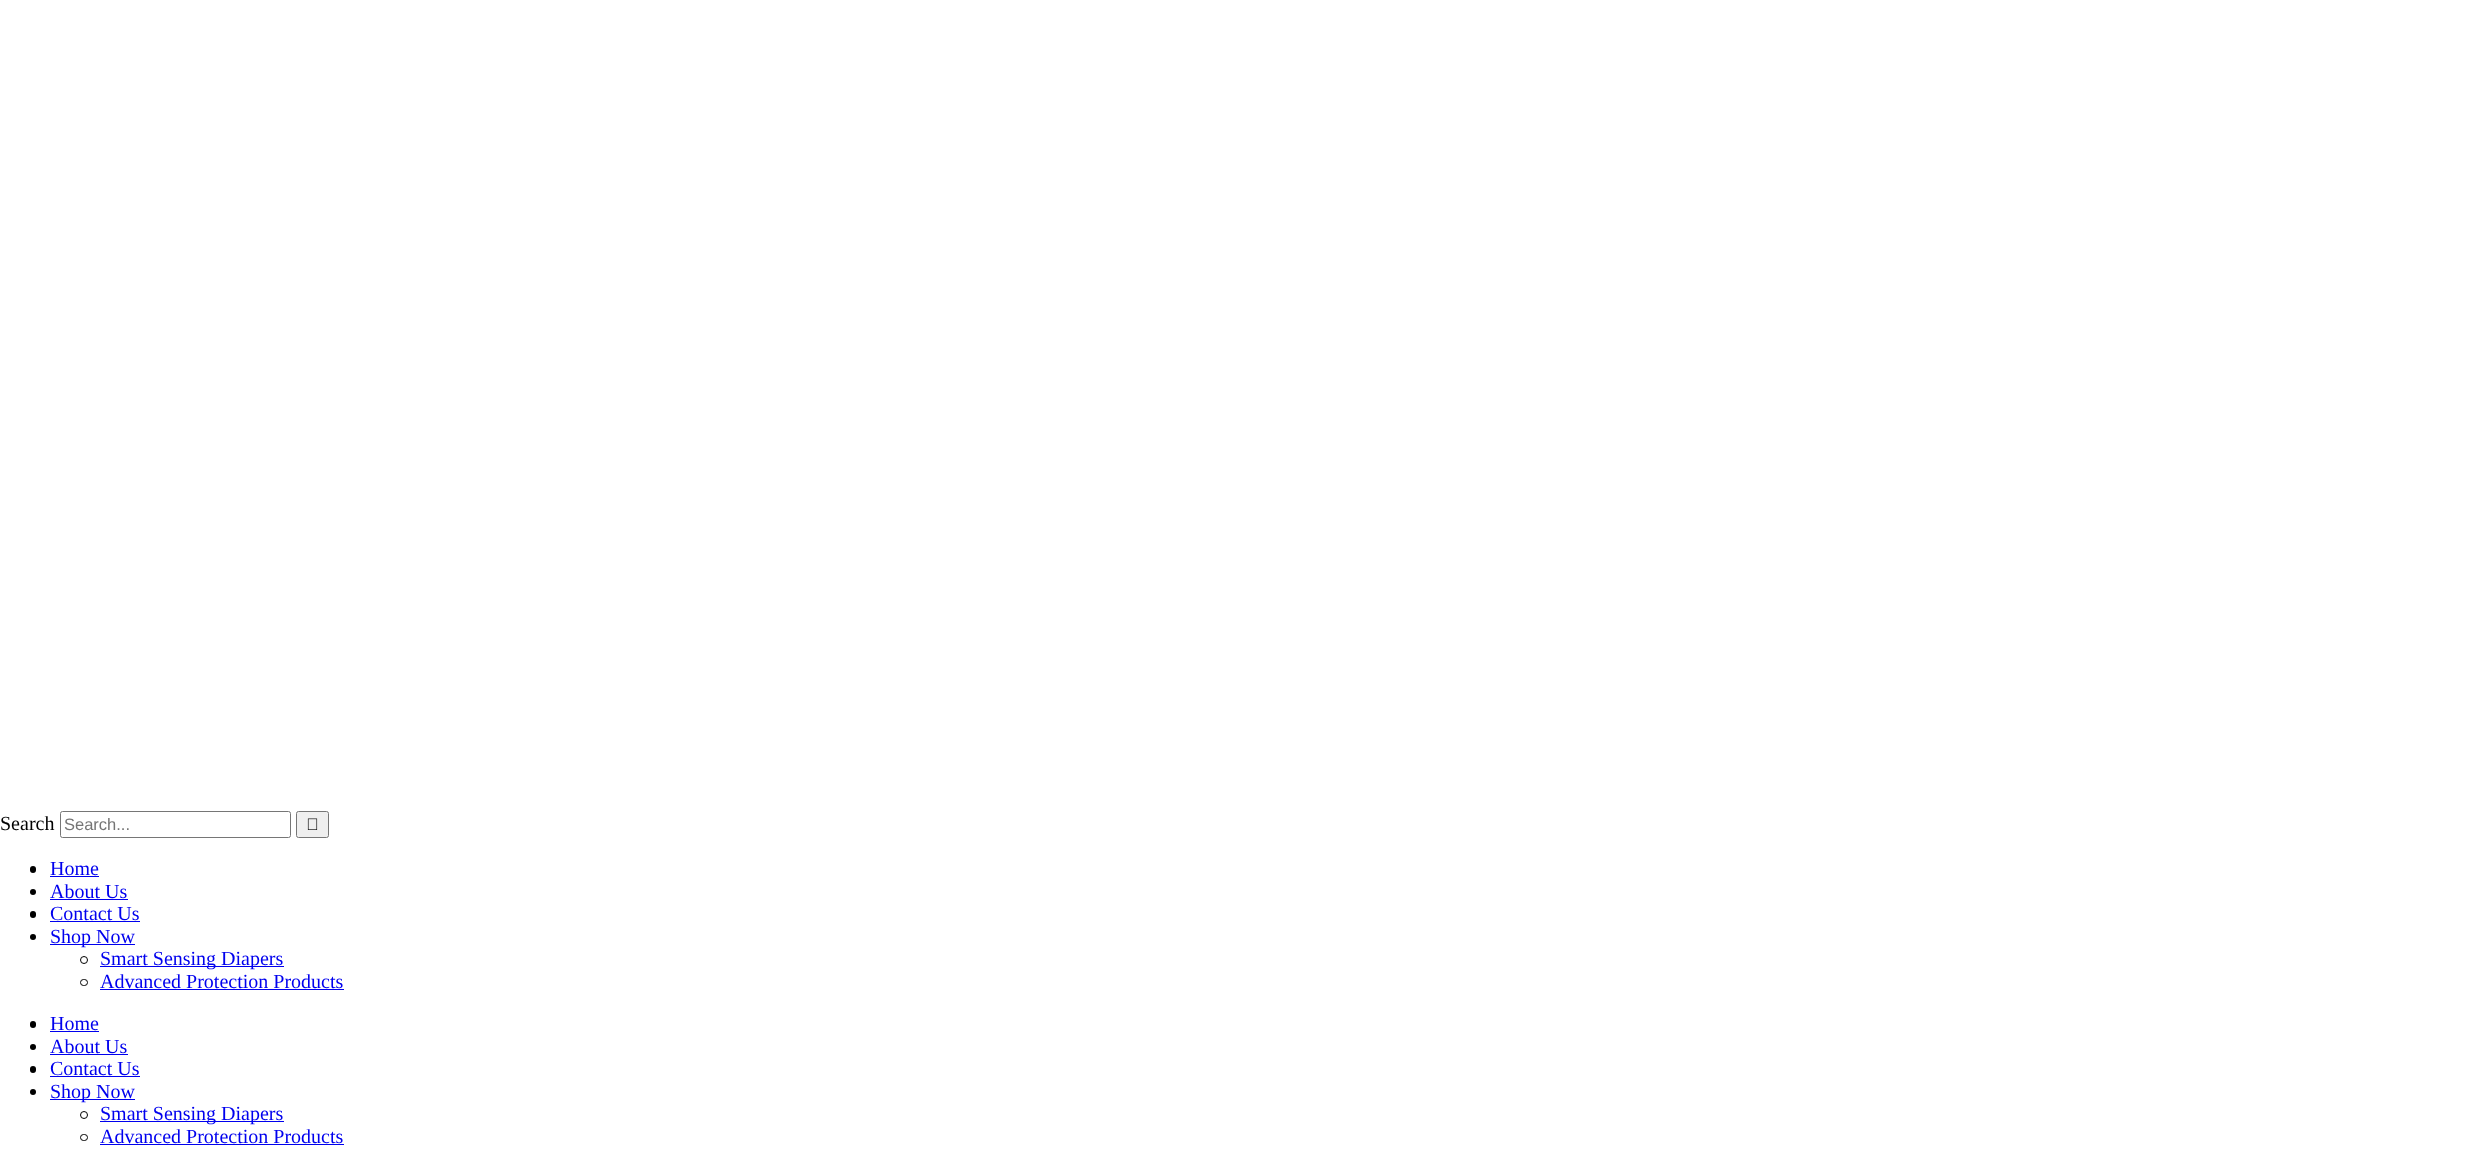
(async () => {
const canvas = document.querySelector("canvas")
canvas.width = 2490
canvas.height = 1167
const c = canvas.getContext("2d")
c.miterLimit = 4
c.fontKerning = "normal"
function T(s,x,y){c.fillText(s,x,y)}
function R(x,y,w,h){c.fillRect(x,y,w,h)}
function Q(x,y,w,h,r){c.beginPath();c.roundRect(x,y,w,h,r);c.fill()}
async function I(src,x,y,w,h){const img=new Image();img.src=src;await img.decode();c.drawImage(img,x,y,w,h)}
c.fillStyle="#fff"
R(0,0,2490,1167)
c.font="20px Liberation Serif"
c.fillStyle="#000"
T("Search",0,830)
c.beginPath()
c.roundRect(60.5,811.5,230,26,2)
c.strokeStyle="#767676"
c.stroke()
c.font="16.5px Liberation Sans"
c.fillStyle="#757575"
T("Search...",64,830)
c.fillStyle="#efefef"
c.beginPath()
c.roundRect(296.5,811.5,32,26,2)
c.fill()
c.stroke()
await I("1.png",307,818,11,12)
c.fillStyle="#000"
Q(30,866,6,7,3)
c.font="20px Liberation Serif"
c.fillStyle="#00e"
T("Home",50,875)
R(50,876,49,1)
c.fillStyle="#000"
c.beginPath()
c.arc(33,892,3,0,7)
c.fill()
c.fillStyle="#00e"
T("About Us",50,898)
R(50,899,78,1)
c.fillStyle="#000"
Q(30,911,6,7,3)
c.fillStyle="#00e"
T("Contact Us",50,920)
R(50,921,90,1)
c.fillStyle="#000"
c.beginPath()
c.arc(33,937,3,0,7)
c.fill()
c.fillStyle="#00e"
R(50,944,85,1)
T("Shop Now",50,943)
c.beginPath()
c.arc(84,960,3.5,0,7)
c.strokeStyle="#000"
c.stroke()
R(100,966,184,1)
T("Smart Sensing Diapers",100,965)
c.beginPath()
c.roundRect(80.5,979.5,7,6,3)
c.stroke()
T("Advanced Protection Products",100,988)
R(100,989,244,1)
c.fillStyle="#000"
Q(30,1021,6,7,3)
c.fillStyle="#00e"
T("Home",50,1030)
R(50,1031,49,1)
c.fillStyle="#000"
c.beginPath()
c.arc(33,1047,3,0,7)
c.fill()
c.fillStyle="#00e"
T("About Us",50,1053)
R(50,1054,78,1)
c.fillStyle="#000"
Q(30,1066,6,7,3)
c.fillStyle="#00e"
T("Contact Us",50,1075)
R(50,1076,90,1)
c.fillStyle="#000"
c.beginPath()
c.arc(33,1092,3,0,7)
c.fill()
c.fillStyle="#00e"
R(50,1099,85,1)
T("Shop Now",50,1098)
c.beginPath()
c.arc(84,1115,3.5,0,7)
c.stroke()
R(100,1121,184,1)
T("Smart Sensing Diapers",100,1120)
c.beginPath()
c.roundRect(80.5,1134.5,7,6,3)
c.stroke()
T("Advanced Protection Products",100,1143)
R(100,1144,244,1)
})()
